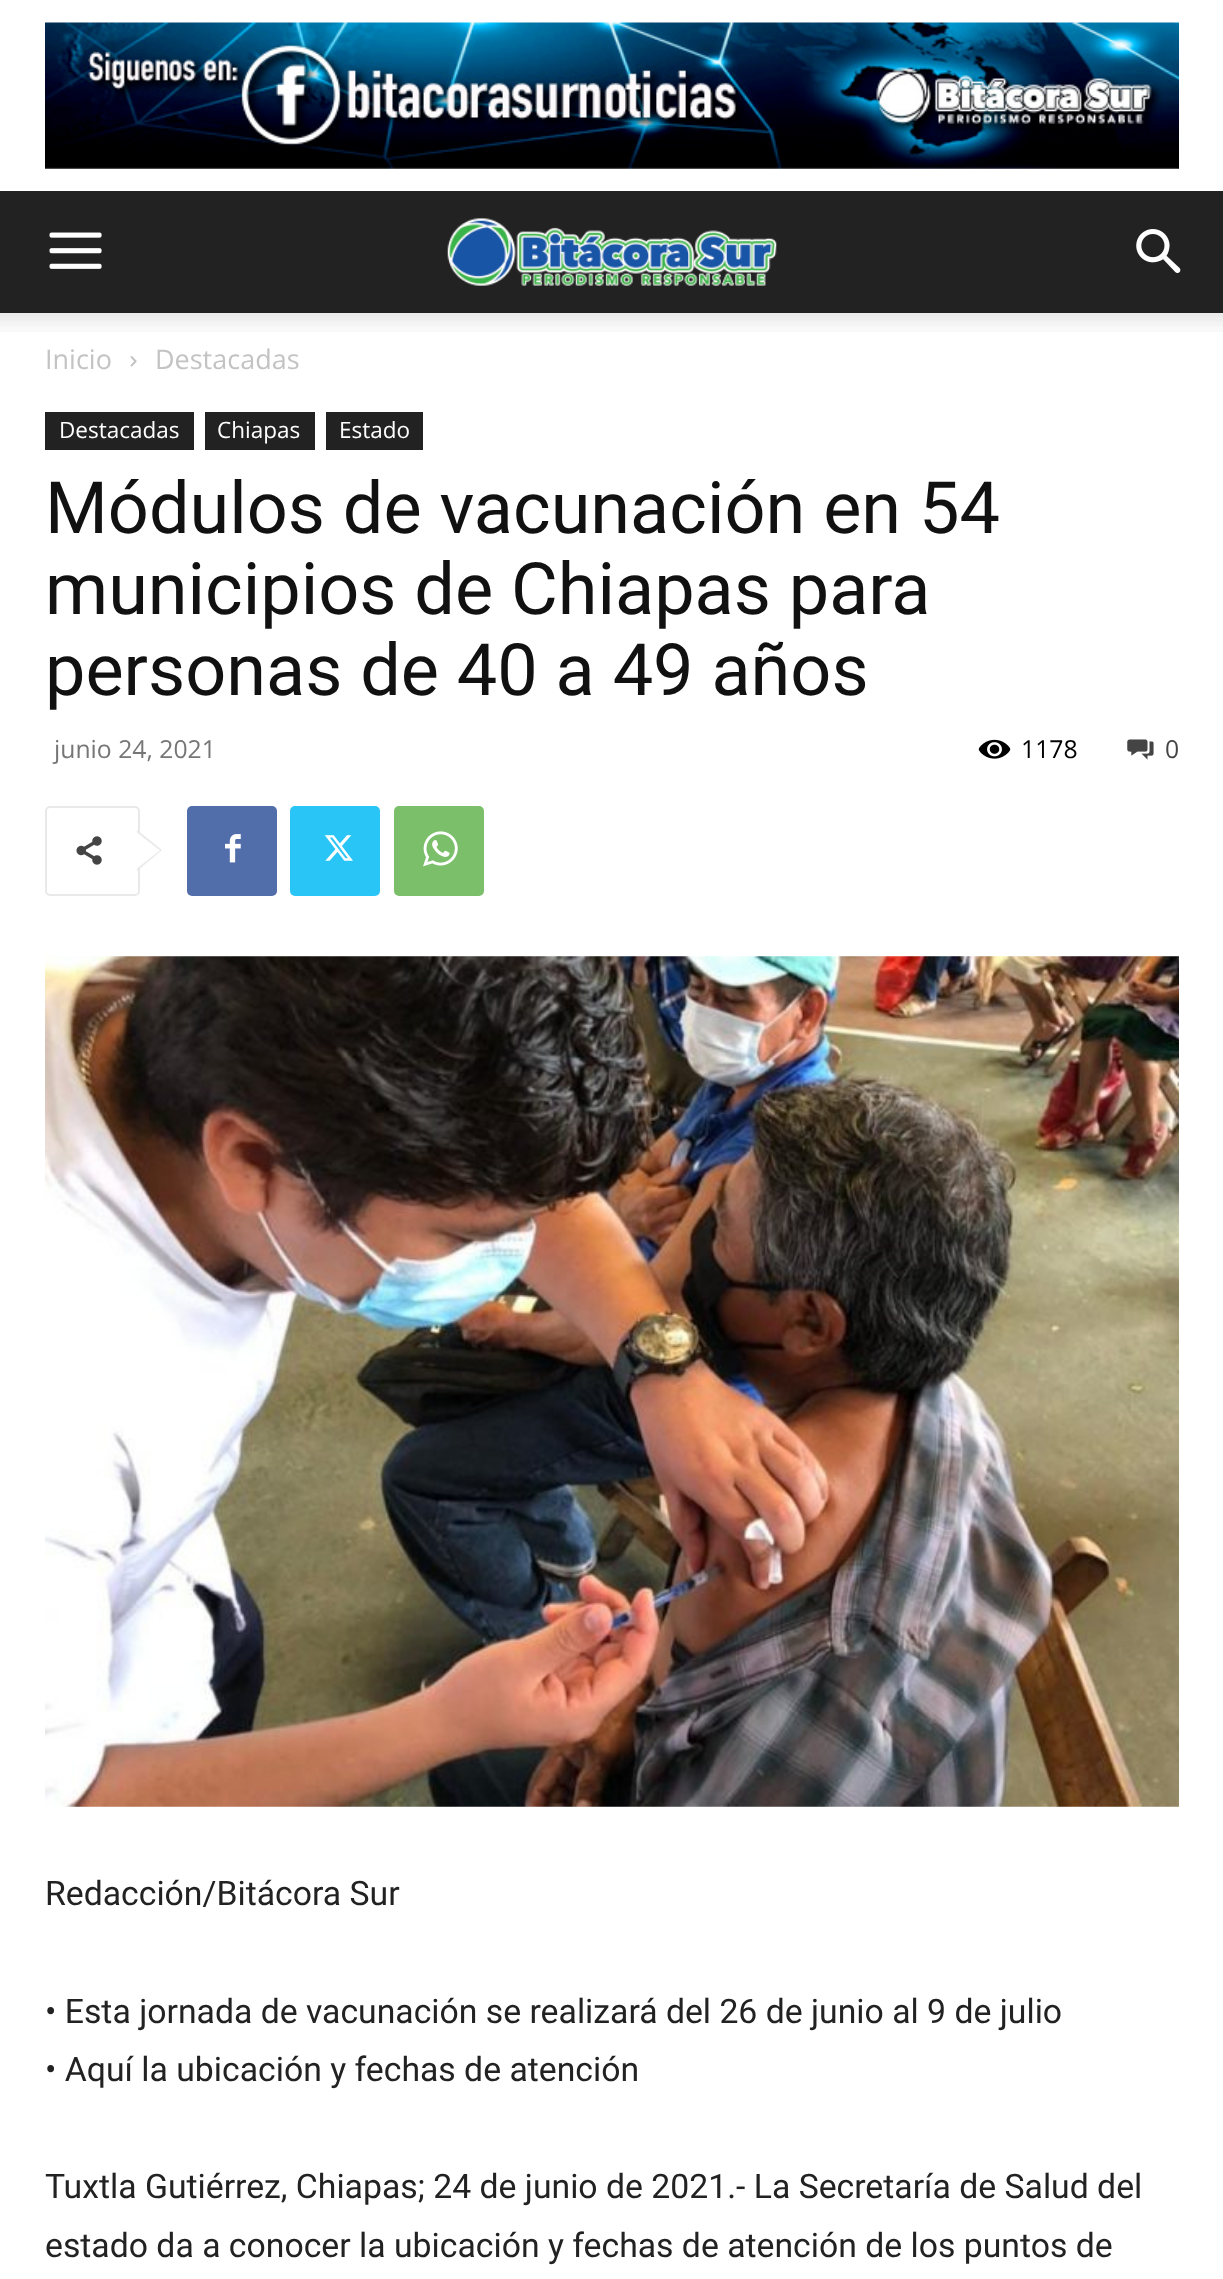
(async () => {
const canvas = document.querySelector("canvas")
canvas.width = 1223
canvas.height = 2279
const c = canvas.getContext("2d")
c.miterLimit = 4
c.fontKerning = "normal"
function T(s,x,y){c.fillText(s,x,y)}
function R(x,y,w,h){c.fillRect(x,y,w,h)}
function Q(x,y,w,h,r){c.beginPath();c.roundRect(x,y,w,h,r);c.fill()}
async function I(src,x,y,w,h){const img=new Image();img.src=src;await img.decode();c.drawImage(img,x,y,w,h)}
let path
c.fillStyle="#fff"
R(0,0,1223,2279)
await I("1.png",45,22,1134,147)
c.fillStyle="#222"
R(0,191,1223,122)
await I("2.png",49,232,53,37)
await I("3.png",447,218,330,68)
await I("4.png",1136,229,45,44)
await I("5.png",0,313,1223,19)
c.font="27px Open Sans"
c.fillStyle="#c3c3c3"
T("Inicio",45,369)
await I("6.png",130,356,7,11)
T("Destacadas",155,369)
c.fillStyle="#222"
R(45,412,149,38)
c.font="22.5px Open Sans"
c.fillStyle="#fff"
T("Destacadas",59,438)
c.fillStyle="#222"
R(205,412,110,38)
c.fillStyle="#fff"
T("Chiapas",217,438)
c.fillStyle="#222"
R(326,412,97,38)
c.fillStyle="#fff"
T("Estado",339,438)
c.font="72px Roboto"
c.fillStyle="#111"
T("Módulos de vacunación en 54",45,533)
T("municipios de Chiapas para",45,614)
T("personas de 40 a 49 años",45,695)
c.font="24.75px Open Sans"
c.fillStyle="#767676"
T("junio 24, 2021",54,758)
await I("7.png",978,739,33,20)
c.fillStyle="#000"
T("1178",1021,758)
await I("8.png",1127,739,27,21)
c.fillStyle="#444"
T("0",1165,758)
c.beginPath()
c.roundRect(46,807,93,88,4)
c.strokeStyle="#e9e9e9"
c.lineWidth=2
c.stroke()
c.fillStyle="#e9e9e9"
path = new Path2D("M137 871v-41l25 20z")
c.fill(path)
await I("9.png",76,836,26,29)
c.fillStyle="#fff"
path = new Path2D("M137 868.5v-36l23 18z")
c.fill(path)
c.fillStyle="#516eab"
Q(187,806,90,90,5)
await I("10.png",225,834,16,29)
c.fillStyle="#29c5f6"
Q(290,806,90,90,5)
await I("11.png",324,835,29,26)
c.fillStyle="#7bbf6a"
Q(394,806,90,90,5)
await I("12.png",423,831,35,36)
await I("13.png",45,956,1134,851)
c.font="33.75px Roboto"
c.fillStyle="#222"
T("Redacción/Bitácora Sur",45,1905)
T("• Esta jornada de vacunación se realizará del 26 de junio al 9 de julio",45,2023)
T("• Aquí la ubicación y fechas de atención",45,2081)
T("Tuxtla Gutiérrez, Chiapas; 24 de junio de 2021.- La Secretaría de Salud del",45,2198)
T("estado da a conocer la ubicación y fechas de atención de los puntos de",45,2257)
})()
